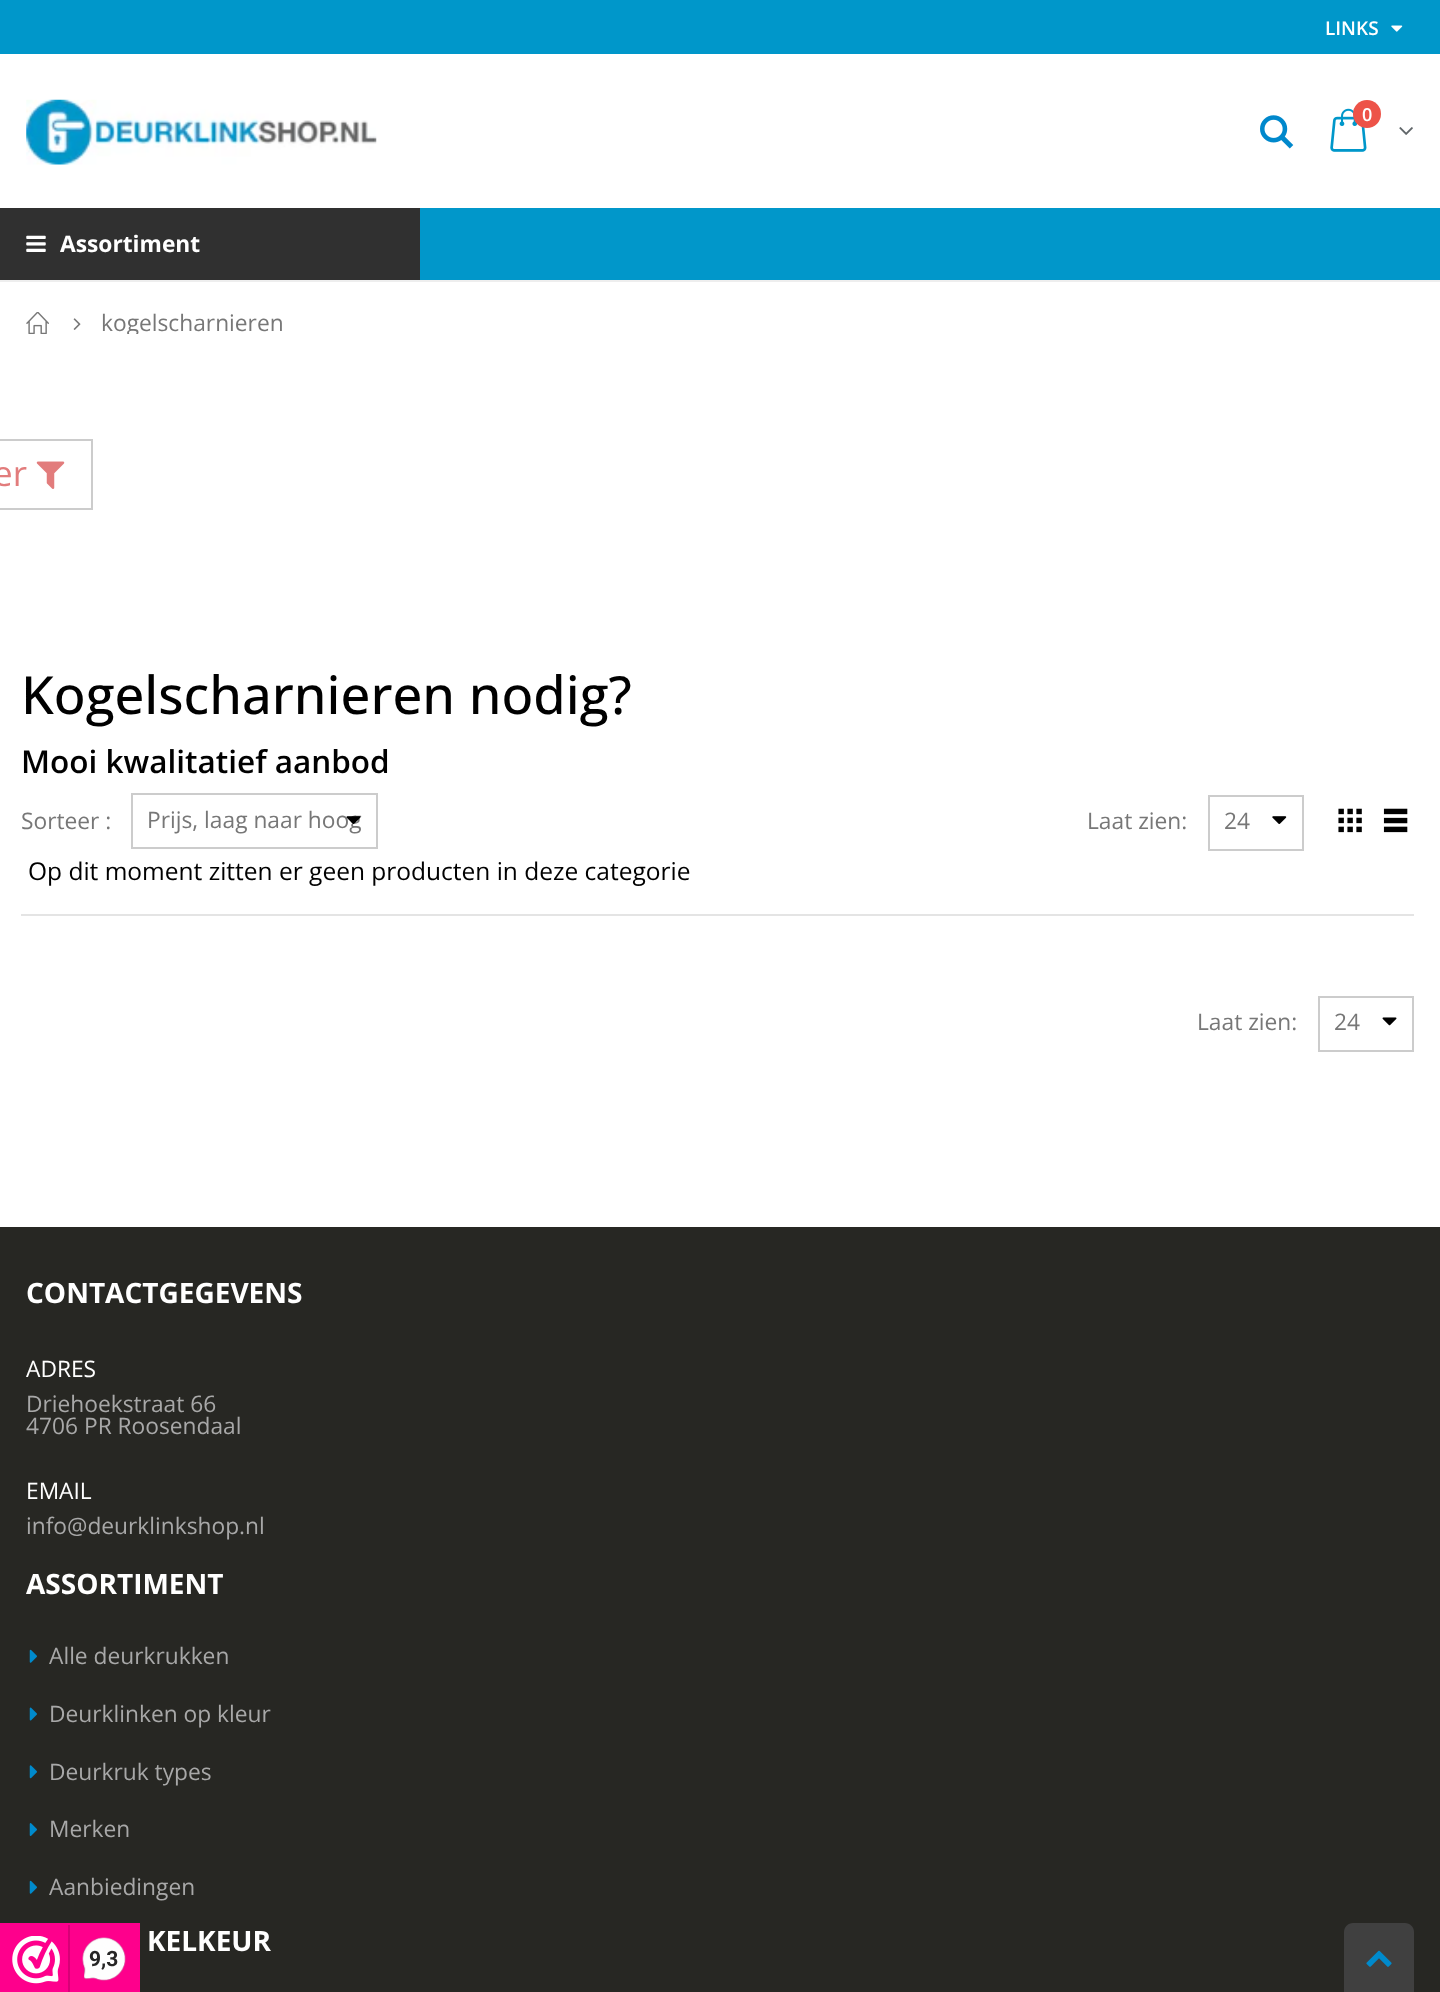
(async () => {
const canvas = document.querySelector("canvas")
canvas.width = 1440
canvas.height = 1992
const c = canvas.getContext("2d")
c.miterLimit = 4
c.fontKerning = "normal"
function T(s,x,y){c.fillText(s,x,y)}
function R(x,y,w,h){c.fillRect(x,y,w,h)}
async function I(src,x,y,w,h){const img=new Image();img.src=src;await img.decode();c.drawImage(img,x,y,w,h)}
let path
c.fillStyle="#fff"
R(0,0,1440,1992)
c.fillStyle="#0097ca"
R(0,0,1440,54)
c.font="600 19px Open Sans"
c.fillStyle="#fff"
T("LINKS",1325,35)
await I("1.png",1391,25,12,7)
await I("2.png",26,99,351,66)
await I("3.png",1260,115,34,34)
await I("4.png",1330,108,37,44)
c.fillStyle="#ed5348"
c.beginPath()
c.arc(1367,114,14,0,7)
c.fill()
c.font="600 18px Open Sans"
c.fillStyle="#fff"
T("0",1362,121)
await I("5.png",1399,127,14,8)
c.fillStyle="#eee"
R(0,280,1440,2)
c.fillStyle="#0197ca"
R(420,208,1020,72)
c.fillStyle="#303030"
R(0,208,420,72)
await I("6.png",26,235,20,17)
c.font="bold 22.75px Open Sans"
c.fillStyle="#fff"
T("Assortiment",60,252)
await I("7.png",26,312,23,22)
await I("8.png",73,318,8,12)
c.save()
c.beginPath()
c.rect(26,310,1388,24)
c.clip()
c.font="22.75px Open Sans"
c.fillStyle="#777"
T("kogelscharnieren",101,331)
c.restore()
c.fillStyle="#ccc"
R(0,439,93,2)
R(91,439,2,70)
R(0,508,93,2)
c.font="35px Open Sans"
c.fillStyle="#e27c7c"
T("er",-7,486)
await I("9.png",36,461,29,28)
c.font="500 52.5px Open Sans"
c.fillStyle="#000"
T("Kogelscharnieren nodig?",21,714)
c.font="600 31.5px Open Sans"
T("Mooi kwalitatief aanbod",21,773)
c.font="22.75px Open Sans"
c.fillStyle="#777"
T("Sorteer :",21,829)
c.strokeStyle="#ccc"
c.lineWidth=2
c.strokeRect(132,794,245,54)
T("Prijs, laag naar hoog",147,828)
await I("10.png",346,816,15,8)
T("Laat zien:",1087,829)
c.strokeRect(1209,796,94,54)
T("24",1224,829)
await I("11.png",1272,816,15,8)
await I("12.png",1338,808,24,25)
await I("13.png",1383,808,25,25)
c.font="24.5px Open Sans"
c.fillStyle="#000"
T("Op dit moment zitten er geen producten in deze categorie",28,880)
c.fillStyle="#e4e4e4"
R(21,914,1393,2)
c.font="22.75px Open Sans"
c.fillStyle="#777"
T("Laat zien:",1197,1030)
c.strokeRect(1319,997,94,54)
T("24",1334,1030)
await I("14.png",1382,1017,15,9)
c.fillStyle="#272723"
R(0,1227,1440,765)
c.font="bold 28px Open Sans"
c.fillStyle="#fff"
T("CONTACTGEGEVENS",26,1303)
c.font="22.75px Open Sans"
T("ADRES",26,1377)
c.fillStyle="#a8a8a8"
T("Driehoekstraat 66",26,1412)
T("4706 PR Roosendaal",26,1434)
c.fillStyle="#fff"
T("EMAIL",26,1499)
c.fillStyle="#a8a8a8"
T("info@deurklinkshop.nl",26,1534)
c.font="bold 28px Open Sans"
c.fillStyle="#fff"
T("ASSORTIMENT",26,1594)
await I("15.png",29,1649,8,14)
c.font="22.75px Open Sans"
c.fillStyle="#a8a8a8"
T("Alle deurkrukken",49,1664)
await I("16.png",29,1707,8,14)
T("Deurklinken op kleur",49,1722)
await I("17.png",29,1765,8,14)
T("Deurkruk types",49,1780)
await I("18.png",29,1823,8,13)
T("Merken",49,1837)
await I("15.png",29,1880,8,14)
T("Aanbiedingen",49,1895)
c.font="bold 28px Open Sans"
c.fillStyle="#fff"
T("KELKEUR",147,1951)
c.fillStyle="#404040"
path = new Path2D("M1353 1923h52c5 0 9 4 9 9v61h-70v-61c0-5 4-9 9-9z")
c.fill(path)
await I("19.png",1366,1950,26,17)
c.fillStyle="#fe008c"
R(0,1923,140,69)
await I("20.png",12,1936,48,48)
c.fillStyle="#d80077"
R(68,1925,2,67)
await I("21.png",82,1937,44,44)
c.font="bold 21px Roboto"
c.fillStyle="#272626"
T("9,3",89,1966)
})()
